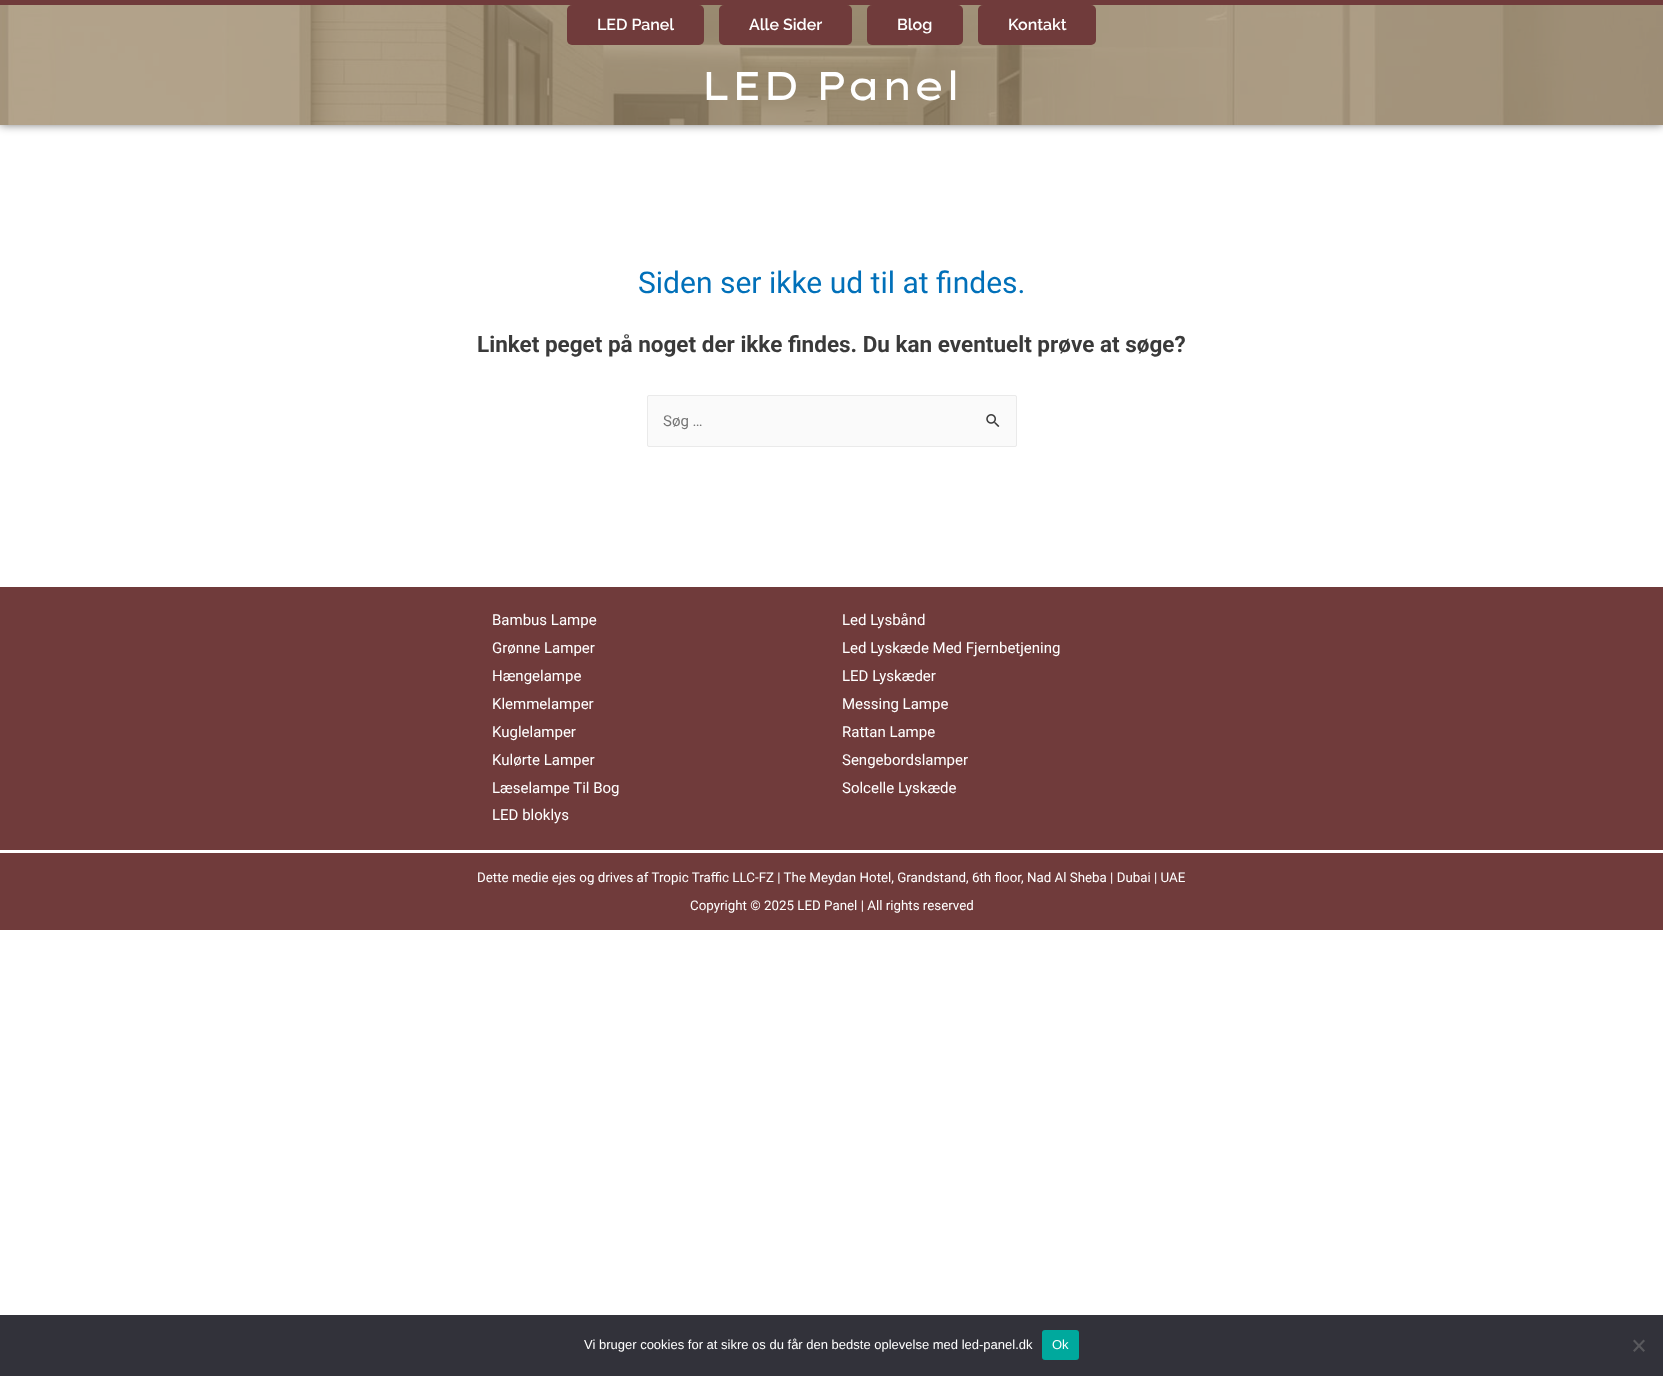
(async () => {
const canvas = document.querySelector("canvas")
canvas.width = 1663
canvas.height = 1376
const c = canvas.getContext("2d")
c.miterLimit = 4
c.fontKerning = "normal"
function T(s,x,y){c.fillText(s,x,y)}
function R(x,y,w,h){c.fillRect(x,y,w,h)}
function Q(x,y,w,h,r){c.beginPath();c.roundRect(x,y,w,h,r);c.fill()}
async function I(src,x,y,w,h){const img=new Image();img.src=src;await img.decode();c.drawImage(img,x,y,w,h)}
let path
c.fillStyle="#fff"
R(0,0,1663,1376)
c.fillStyle="#00000080"
c.filter="blur(5px)"
c.beginPath()
c.rect(0,0,1663,125)
c.fill()
c.filter="none"
await I("1.png",0,5,1663,120)
c.fillStyle="#703b3b"
R(0,0,1663,5)
Q(567,5,137,40,5)
c.font="600 16px Raleway"
c.fillStyle="#fff"
T("LED Panel",597,30)
c.fillStyle="#703b3b"
Q(719,5,133,40,5)
c.fillStyle="#fff"
T("Alle Sider",749,30)
c.fillStyle="#703b3b"
Q(867,5,96,40,5)
c.fillStyle="#fff"
T("Blog",897,30)
c.fillStyle="#703b3b"
Q(978,5,118,40,5)
c.fillStyle="#fff"
T("Kontakt",1008,30)
c.font="40px Lexend Giga"
T("LED Panel",701,100)
c.font="30px Roboto"
c.fillStyle="#0170b9"
T("Siden ser ikke ud til at findes.",638,293)
c.font="bold 22.5px Roboto"
c.fillStyle="#3a3a3a"
T("Linket peget på noget der ikke findes. Du kan eventuelt prøve at søge?",477,352)
c.fillStyle="#fafafa"
c.beginPath()
c.roundRect(647.5,395.5,369,51,1.5)
c.fill()
c.strokeStyle="#eaeaea"
c.stroke()
c.font="15px Roboto"
c.fillStyle="#757575"
T("Søg …",663,426)
await I("2.png",986,414,14,13)
c.fillStyle="#703b3b"
R(0,587,1663,263)
c.fillStyle="#fff"
T("Bambus Lampe",492,625)
T("Grønne Lamper",492,653)
T("Hængelampe",492,681)
T("Klemmelamper",492,709)
T("Kuglelamper",492,737)
T("Kulørte Lamper",492,765)
T("Læselampe Til Bog",492,793)
T("LED bloklys",492,820)
T("Led Lysbånd",842,625)
T("Led Lyskæde Med Fjernbetjening",842,653)
T("LED Lyskæder",842,681)
T("Messing Lampe",842,709)
T("Rattan Lampe",842,737)
T("Sengebordslamper",842,765)
T("Solcelle Lyskæde",842,793)
c.fillStyle="#703b3b"
R(0,853,1663,77)
c.font="13.33px Roboto"
c.fillStyle="#fff"
T("Dette medie ejes og drives af Tropic Traffic LLC-FZ | The Meydan Hotel, Grandstand, 6th floor, Nad Al Sheba | Dubai | UAE",477,882)
T("Copyright © 2025 LED Panel | All rights reserved",690,910)
c.fillStyle="#32323a"
R(0,1315,1663,61)
c.font="13px Liberation Sans"
c.fillStyle="#fff"
T("Vi bruger cookies for at sikre os du får den bedste oplevelse med led-panel.dk",584,1349)
c.fillStyle="#00a99d"
Q(1042,1330,37,30,3)
c.fillStyle="#fff"
T("Ok",1052,1349)
c.fillStyle="#59595d"
path = new Path2D("M1643.5 1339.5l1.5 1.5l-10.5 11l-1.5-1.5z")
c.fill(path)
path = new Path2D("M1633 1341l1.5-1.5l10.5 11l-1.5 1.5z")
c.fill(path)
})()
